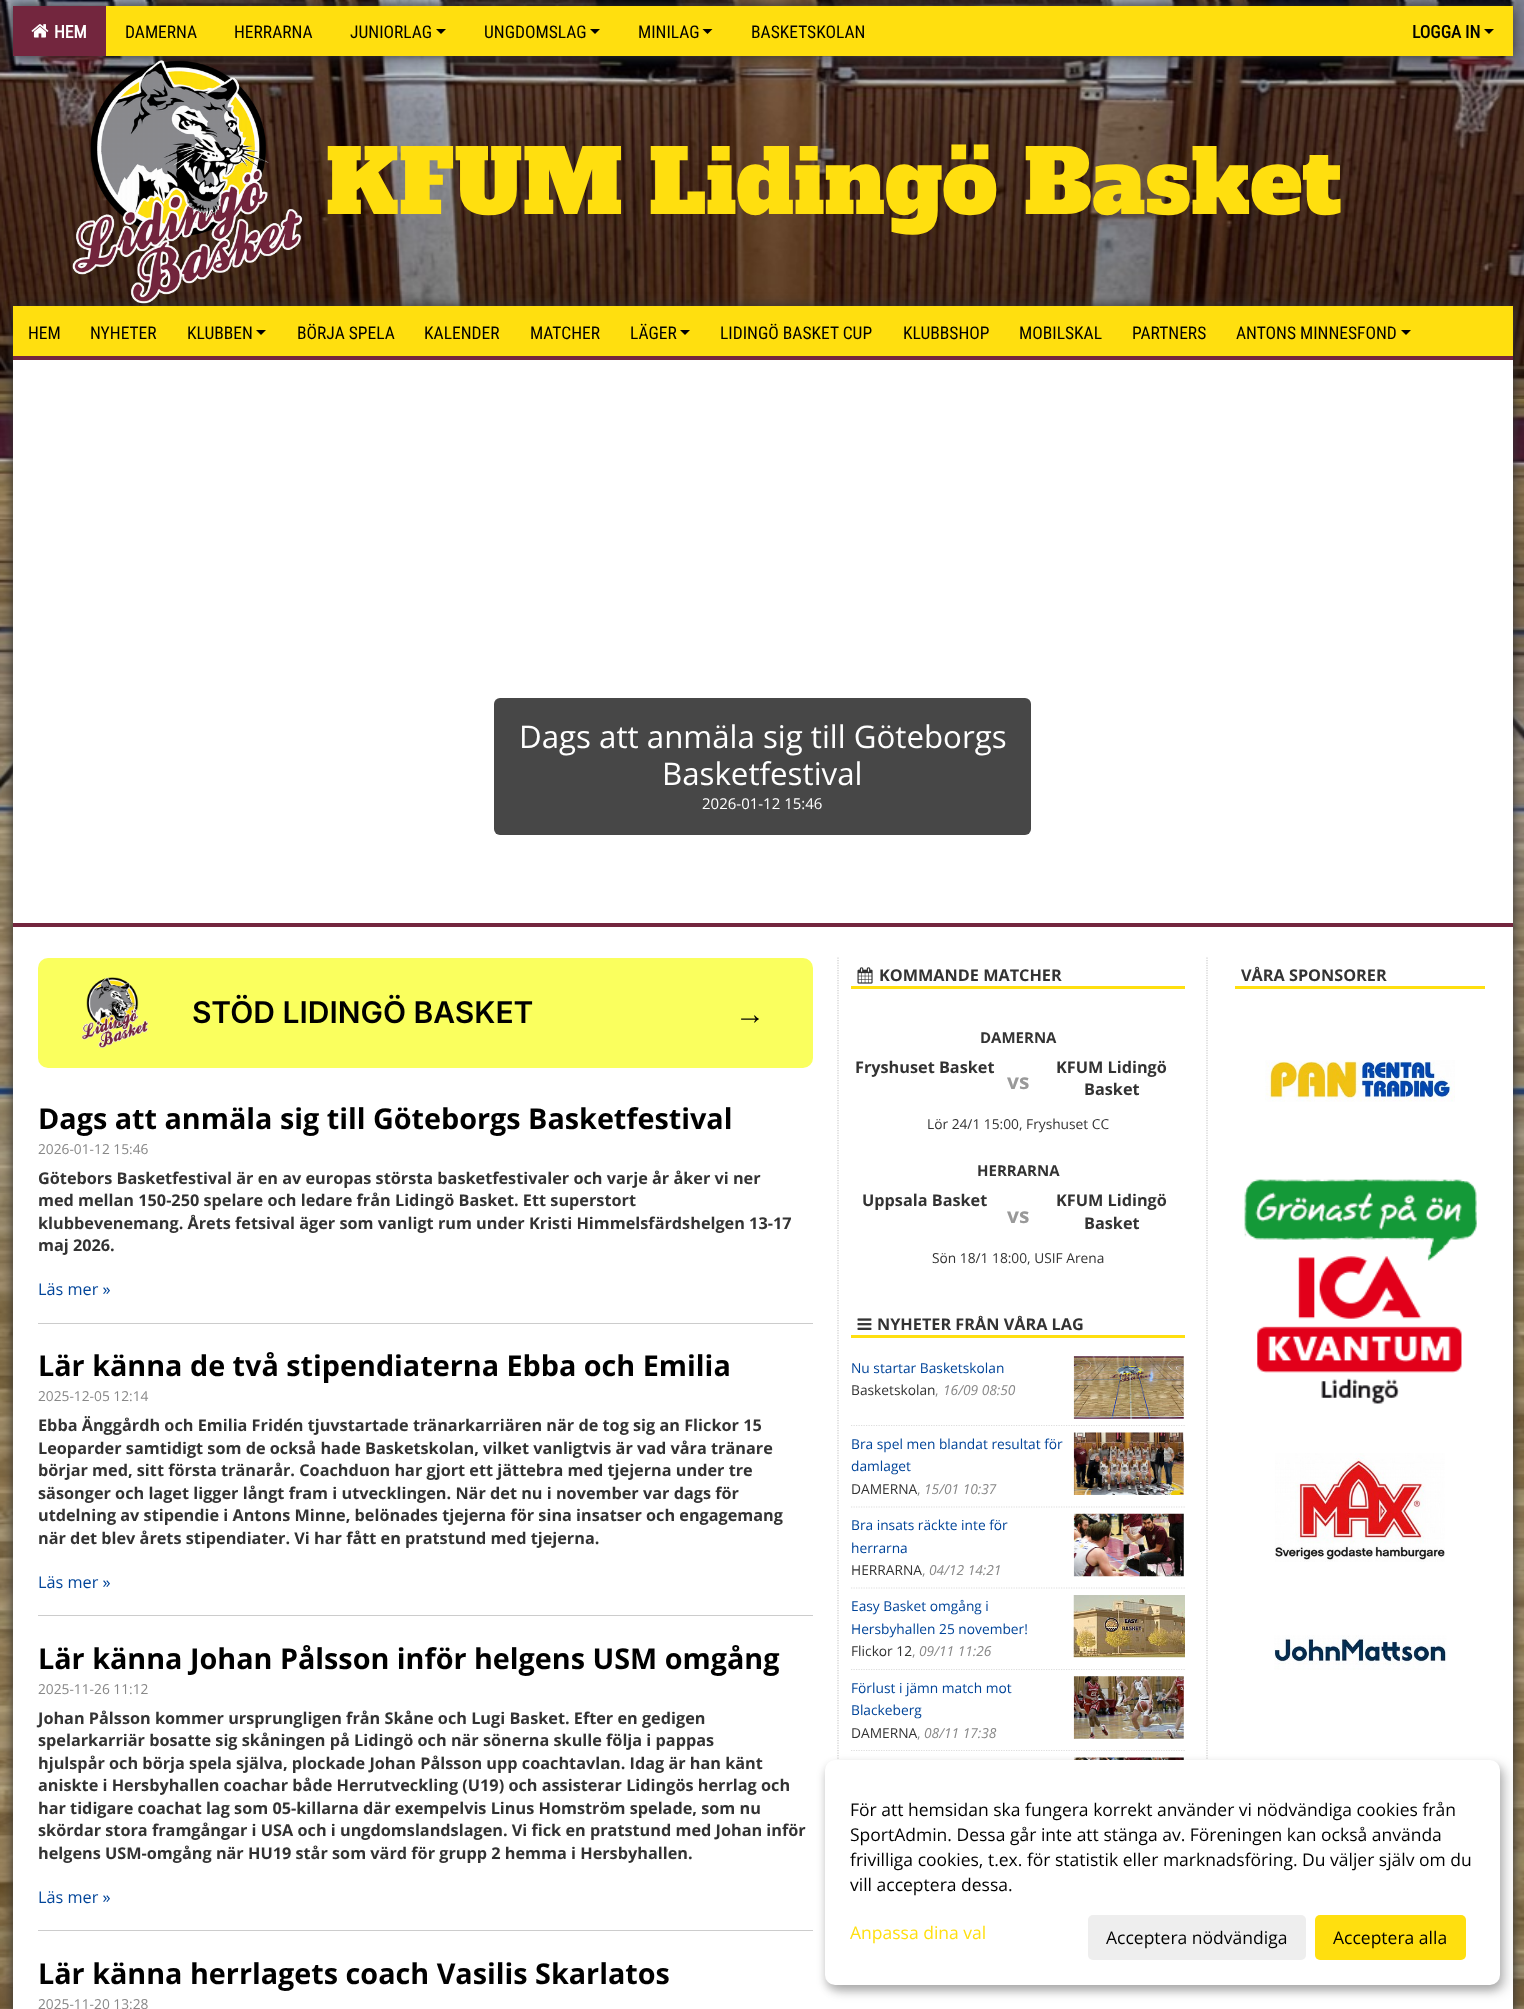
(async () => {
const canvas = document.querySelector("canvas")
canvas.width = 1524
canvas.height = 2009
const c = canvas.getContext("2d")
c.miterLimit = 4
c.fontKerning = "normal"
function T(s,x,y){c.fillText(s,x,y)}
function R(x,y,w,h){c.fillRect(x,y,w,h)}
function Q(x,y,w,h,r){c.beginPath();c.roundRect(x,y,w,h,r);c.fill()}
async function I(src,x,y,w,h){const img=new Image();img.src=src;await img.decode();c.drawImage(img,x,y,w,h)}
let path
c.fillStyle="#fff"
R(0,0,1524,2009)
await I("1.png",0,0,1524,2009)
c.fillStyle="#333"
c.filter="blur(6px)"
c.beginPath()
c.rect(13,6,1500,50)
c.fill()
c.filter="none"
c.fillStyle="#ffdf0f"
R(106,6,1407,50)
c.fillStyle="#73263e"
R(13,6,93,50)
await I("2.png",31,24,18,14)
c.font="bold 17.5px Roboto Condensed"
c.fillStyle="#fff"
T("HEM",54,38)
c.font="17.5px Roboto Condensed"
c.fillStyle="#000"
T("DAMERNA",125,38)
T("HERRARNA",234,38)
T("JUNIORLAG",350,38)
path = new Path2D("M436 29h10l-5 5z")
c.fill(path)
T("UNGDOMSLAG",484,38)
path = new Path2D("M590 29h10l-5 5z")
c.fill(path)
T("MINILAG",638,38)
path = new Path2D("M702.5 29h10l-5 5z")
c.fill(path)
T("BASKETSKOLAN",751,38)
c.font="bold 17.5px Roboto Condensed"
T("LOGGA IN",1412,38)
path = new Path2D("M1484 29h10l-5 5z")
c.fill(path)
c.fillStyle="#333"
c.filter="blur(6px)"
c.beginPath()
c.rect(13,306,1500,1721)
c.fill()
c.filter="none"
await I("3.png",72,60,231,244)
c.font="87.5px Alfa Slab One"
c.fillStyle="#ffdf0f"
T("KFUM Lidingö Basket",326,214)
c.fillStyle="#fff"
R(13,360,1500,1649)
c.fillStyle="#ffdf0f"
R(13,306,1500,50)
c.font="17.5px Roboto Condensed"
c.fillStyle="#000"
T("HEM",28,339)
T("NYHETER",90,339)
T("KLUBBEN",187,339)
path = new Path2D("M256 330h10l-5 5z")
c.fill(path)
T("BÖRJA SPELA",297,339)
T("KALENDER",424,339)
T("MATCHER",530,339)
T("LÄGER",630,339)
path = new Path2D("M680 330h10l-5 5z")
c.fill(path)
T("LIDINGÖ BASKET CUP",720,339)
T("KLUBBSHOP",903,339)
T("MOBILSKAL",1019,339)
T("PARTNERS",1132,339)
T("ANTONS MINNESFOND",1236,339)
path = new Path2D("M1401 330h10l-5 5z")
c.fill(path)
c.fillStyle="#73263e"
R(13,356,1500,4)
c.fillStyle="#474747"
Q(494,698,537,137,6)
c.font="31.25px Open Sans"
c.fillStyle="#fff"
T("Dags att anmäla sig till Göteborgs",519,748)
T("Basketfestival",662,785)
c.font="15px Open Sans"
T("2026-01-12 15:46",702,809)
c.fillStyle="#73263e"
R(13,923,1500,4)
c.fillStyle="#faff5e"
Q(38,958,775,110,10)
await I("4.png",81,977,68,71)
c.font="600 30px Inter"
c.fillStyle="#000"
T("STÖD LIDINGÖ BASKET",192,1023)
c.font="30px Liberation Sans"
T("→",735,1024)
c.font="bold 28.75px Open Sans"
T("Dags att anmäla sig till Göteborgs Basketfestival",38,1129)
c.font="13.75px Open Sans"
c.fillStyle="#888"
T("2026-01-12 15:46",38,1154)
c.font="bold 16.25px Open Sans"
c.fillStyle="#333"
T("Götebors Basketfestival är en av europas största basketfestivaler och varje år åker vi ner",38,1184)
T("med mellan 150-250 spelare och ledare från Lidingö Basket. Ett superstort",38,1206)
T("klubbevenemang. Årets fetsival äger som vanligt rum under Kristi Himmelsfärdshelgen 13-17",38,1229)
T("maj 2026.",38,1251)
c.font="16.25px Open Sans"
c.fillStyle="#049"
T("Läs mer »",38,1295)
c.fillStyle="#ccc"
R(38,1323,775,1)
c.font="bold 28.75px Open Sans"
c.fillStyle="#000"
T("Lär känna de två stipendiaterna Ebba och Emilia",38,1376)
c.font="13.75px Open Sans"
c.fillStyle="#888"
T("2025-12-05 12:14",38,1401)
c.font="bold 16.25px Open Sans"
c.fillStyle="#333"
T("Ebba Änggårdh och Emilia Fridén tjuvstartade tränarkarriären när de tog sig an Flickor 15",38,1431)
T("Leoparder samtidigt som de också hade Basketskolan, vilket vanligtvis är vad våra tränare",38,1454)
T("börjar med, sitt första tränarår. Coachduon har gjort ett jättebra med tjejerna under tre",38,1476)
T("säsonger och laget ligger långt fram i utvecklingen. När det nu i november var dags för",38,1499)
T("utdelning av stipendie i Antons Minne, belönades tjejerna för sina insatser och engagemang",38,1521)
T("när det blev årets stipendiater. Vi har fått en pratstund med tjejerna.",38,1544)
c.font="16.25px Open Sans"
c.fillStyle="#049"
T("Läs mer »",38,1588)
c.fillStyle="#ccc"
R(38,1615,775,1)
c.font="bold 28.75px Open Sans"
c.fillStyle="#000"
T("Lär känna Johan Pålsson inför helgens USM omgång",38,1669)
c.font="13.75px Open Sans"
c.fillStyle="#888"
T("2025-11-26 11:12",38,1694)
c.font="bold 16.25px Open Sans"
c.fillStyle="#333"
T("Johan Pålsson kommer ursprungligen från Skåne och Lugi Basket. Efter en gedigen",38,1724)
T("spelarkarriär bosatte sig skåningen på Lidingö och när sönerna skulle följa i pappas",38,1746)
T("hjulspår och börja spela själva, plockade Johan Pålsson upp coachtavlan. Idag är han känt",38,1769)
T("aniskte i Hersbyhallen coachar både Herrutveckling (U19) och assisterar Lidingös herrlag och",38,1791)
T("har tidigare coachat lag som 05-killarna där exempelvis Linus Homström spelade, som nu",38,1814)
T("skördar stora framgångar i USA och i ungdomslandslagen. Vi fick en pratstund med Johan inför",38,1836)
T("helgens USM-omgång när HU19 står som värd för grupp 2 hemma i Hersbyhallen.",38,1859)
c.font="16.25px Open Sans"
c.fillStyle="#049"
T("Läs mer »",38,1903)
c.fillStyle="#ccc"
R(38,1930,775,1)
c.font="bold 28.75px Open Sans"
c.fillStyle="#000"
T("Lär känna herrlagets coach Vasilis Skarlatos",38,1984)
c.font="13.75px Open Sans"
c.fillStyle="#888"
T("2025-11-20 13:28",38,2009)
path = new Path2D("M838 957.5v863.5")
c.strokeStyle="#ccc"
c.lineWidth=1.2
c.setLineDash([1.25,1.25])
c.stroke(path)
c.fillStyle="#ffdf0f"
R(851,986,334,3)
await I("5.png",857,967,16,17)
c.font="bold 16.25px Open Sans"
c.fillStyle="#333"
T("KOMMANDE MATCHER",879,981)
c.font="bold 15px Open Sans"
T("DAMERNA",980,1043)
c.font="bold 16.25px Open Sans"
T("Fryshuset Basket",855,1073)
c.font="bold 21px Open Sans"
c.fillStyle="#999"
T("vs",1007,1089)
c.font="bold 16.25px Open Sans"
c.fillStyle="#333"
T("KFUM Lidingö",1056,1073)
T("Basket",1084,1095)
c.font="13.75px Open Sans"
T("Lör 24/1 15:00, Fryshuset CC",927,1129)
c.font="bold 15px Open Sans"
T("HERRARNA",977,1176)
c.font="bold 16.25px Open Sans"
T("Uppsala Basket",862,1206)
c.font="bold 21px Open Sans"
c.fillStyle="#999"
T("vs",1007,1223)
c.font="bold 16.25px Open Sans"
c.fillStyle="#333"
T("KFUM Lidingö",1056,1206)
T("Basket",1084,1229)
c.font="13.75px Open Sans"
T("Sön 18/1 18:00, USIF Arena",932,1263)
c.fillStyle="#ffdf0f"
R(851,1335,334,3)
await I("6.png",857,1318,15,12)
c.font="bold 16.25px Open Sans"
c.fillStyle="#333"
T("NYHETER FRÅN VÅRA LAG",877,1330)
c.font="13.75px Open Sans"
c.fillStyle="#049"
T("Nu startar Basketskolan",851,1373)
await I("7.png",1073,1356,111,63)
c.fillStyle="#333"
T("Basketskolan",851,1395)
c.fillStyle="#888"
T(",",935,1395)
c.font="italic 13.75px Open Sans"
T("16/09 08:50",943,1395)
path = new Path2D("M851 1425.5h334")
c.strokeStyle="#ddd"
c.stroke(path)
c.font="13.75px Open Sans"
c.fillStyle="#049"
T("Bra spel men blandat resultat för",851,1449)
T("damlaget",851,1471)
await I("8.png",1073,1432,111,63)
c.fillStyle="#333"
T("DAMERNA",851,1494)
c.fillStyle="#888"
T(",",917,1494)
c.font="italic 13.75px Open Sans"
T("15/01 10:37",924,1494)
path = new Path2D("M851 1507h334")
c.stroke(path)
c.font="13.75px Open Sans"
c.fillStyle="#049"
T("Bra insats räckte inte för",851,1530)
T("herrarna",851,1553)
await I("9.png",1073,1513,111,64)
c.fillStyle="#333"
T("HERRARNA",851,1575)
c.fillStyle="#888"
T(",",922,1575)
c.font="italic 13.75px Open Sans"
T("04/12 14:21",929,1575)
path = new Path2D("M851 1588h334")
c.stroke(path)
c.font="13.75px Open Sans"
c.fillStyle="#049"
T("Easy Basket omgång i",851,1611)
T("Hersbyhallen 25 november!",851,1634)
await I("10.png",1073,1595,112,63)
c.fillStyle="#333"
T("Flickor 12",851,1656)
c.fillStyle="#888"
T(",",912,1656)
c.font="italic 13.75px Open Sans"
T("09/11 11:26",919,1656)
path = new Path2D("M851 1669.5h334")
c.stroke(path)
c.font="13.75px Open Sans"
c.fillStyle="#049"
T("Förlust i jämn match mot",851,1693)
T("Blackeberg",851,1715)
await I("11.png",1073,1676,111,63)
c.fillStyle="#333"
T("DAMERNA",851,1738)
c.fillStyle="#888"
T(",",917,1738)
c.font="italic 13.75px Open Sans"
T("08/11 17:38",924,1738)
path = new Path2D("M851 1750.5h334")
c.stroke(path)
await I("12.png",1073,1757,111,3)
path = new Path2D("M1207 957.5v863.5")
c.strokeStyle="#ccc"
c.stroke(path)
c.fillStyle="#ffdf0f"
R(1235,986,250,3)
c.font="bold 16.25px Open Sans"
c.fillStyle="#333"
T("VÅRA SPONSORER",1241,981)
await I("13.png",1265,1060,190,42)
await I("14.png",1244,1179,233,225)
await I("15.png",1275,1453,170,109)
await I("16.png",1274,1635,173,35)
c.fillStyle="#00000030"
c.filter="blur(6px)"
c.beginPath()
c.roundRect(831,1766,675,225,10)
c.fill()
c.filter="none"
c.fillStyle="#00000033"
c.filter="blur(4px)"
c.beginPath()
c.roundRect(825,1765,675,225,10)
c.fill()
c.filter="none"
c.fillStyle="#fff"
Q(825,1760,675,225,10)
c.font="17.5px Open Sans"
c.fillStyle="#000"
T("För att hemsidan ska fungera korrekt använder vi nödvändiga cookies från",850,1816)
T("SportAdmin. Dessa går inte att stänga av. Föreningen kan också använda",850,1841)
T("frivilliga cookies, t.ex. för statistik eller marknadsföring. Du väljer själv om du",850,1866)
T("vill acceptera dessa.",850,1891)
c.fillStyle="#ffdf0f"
T("Anpassa dina val",850,1939)
c.fillStyle="#eee"
Q(1088,1915,218,45,5)
c.fillStyle="#000"
T("Acceptera nödvändiga",1106,1944)
c.fillStyle="#ffdf0f"
Q(1315,1915,151,45,5)
c.fillStyle="#000"
T("Acceptera alla",1333,1944)
})()
